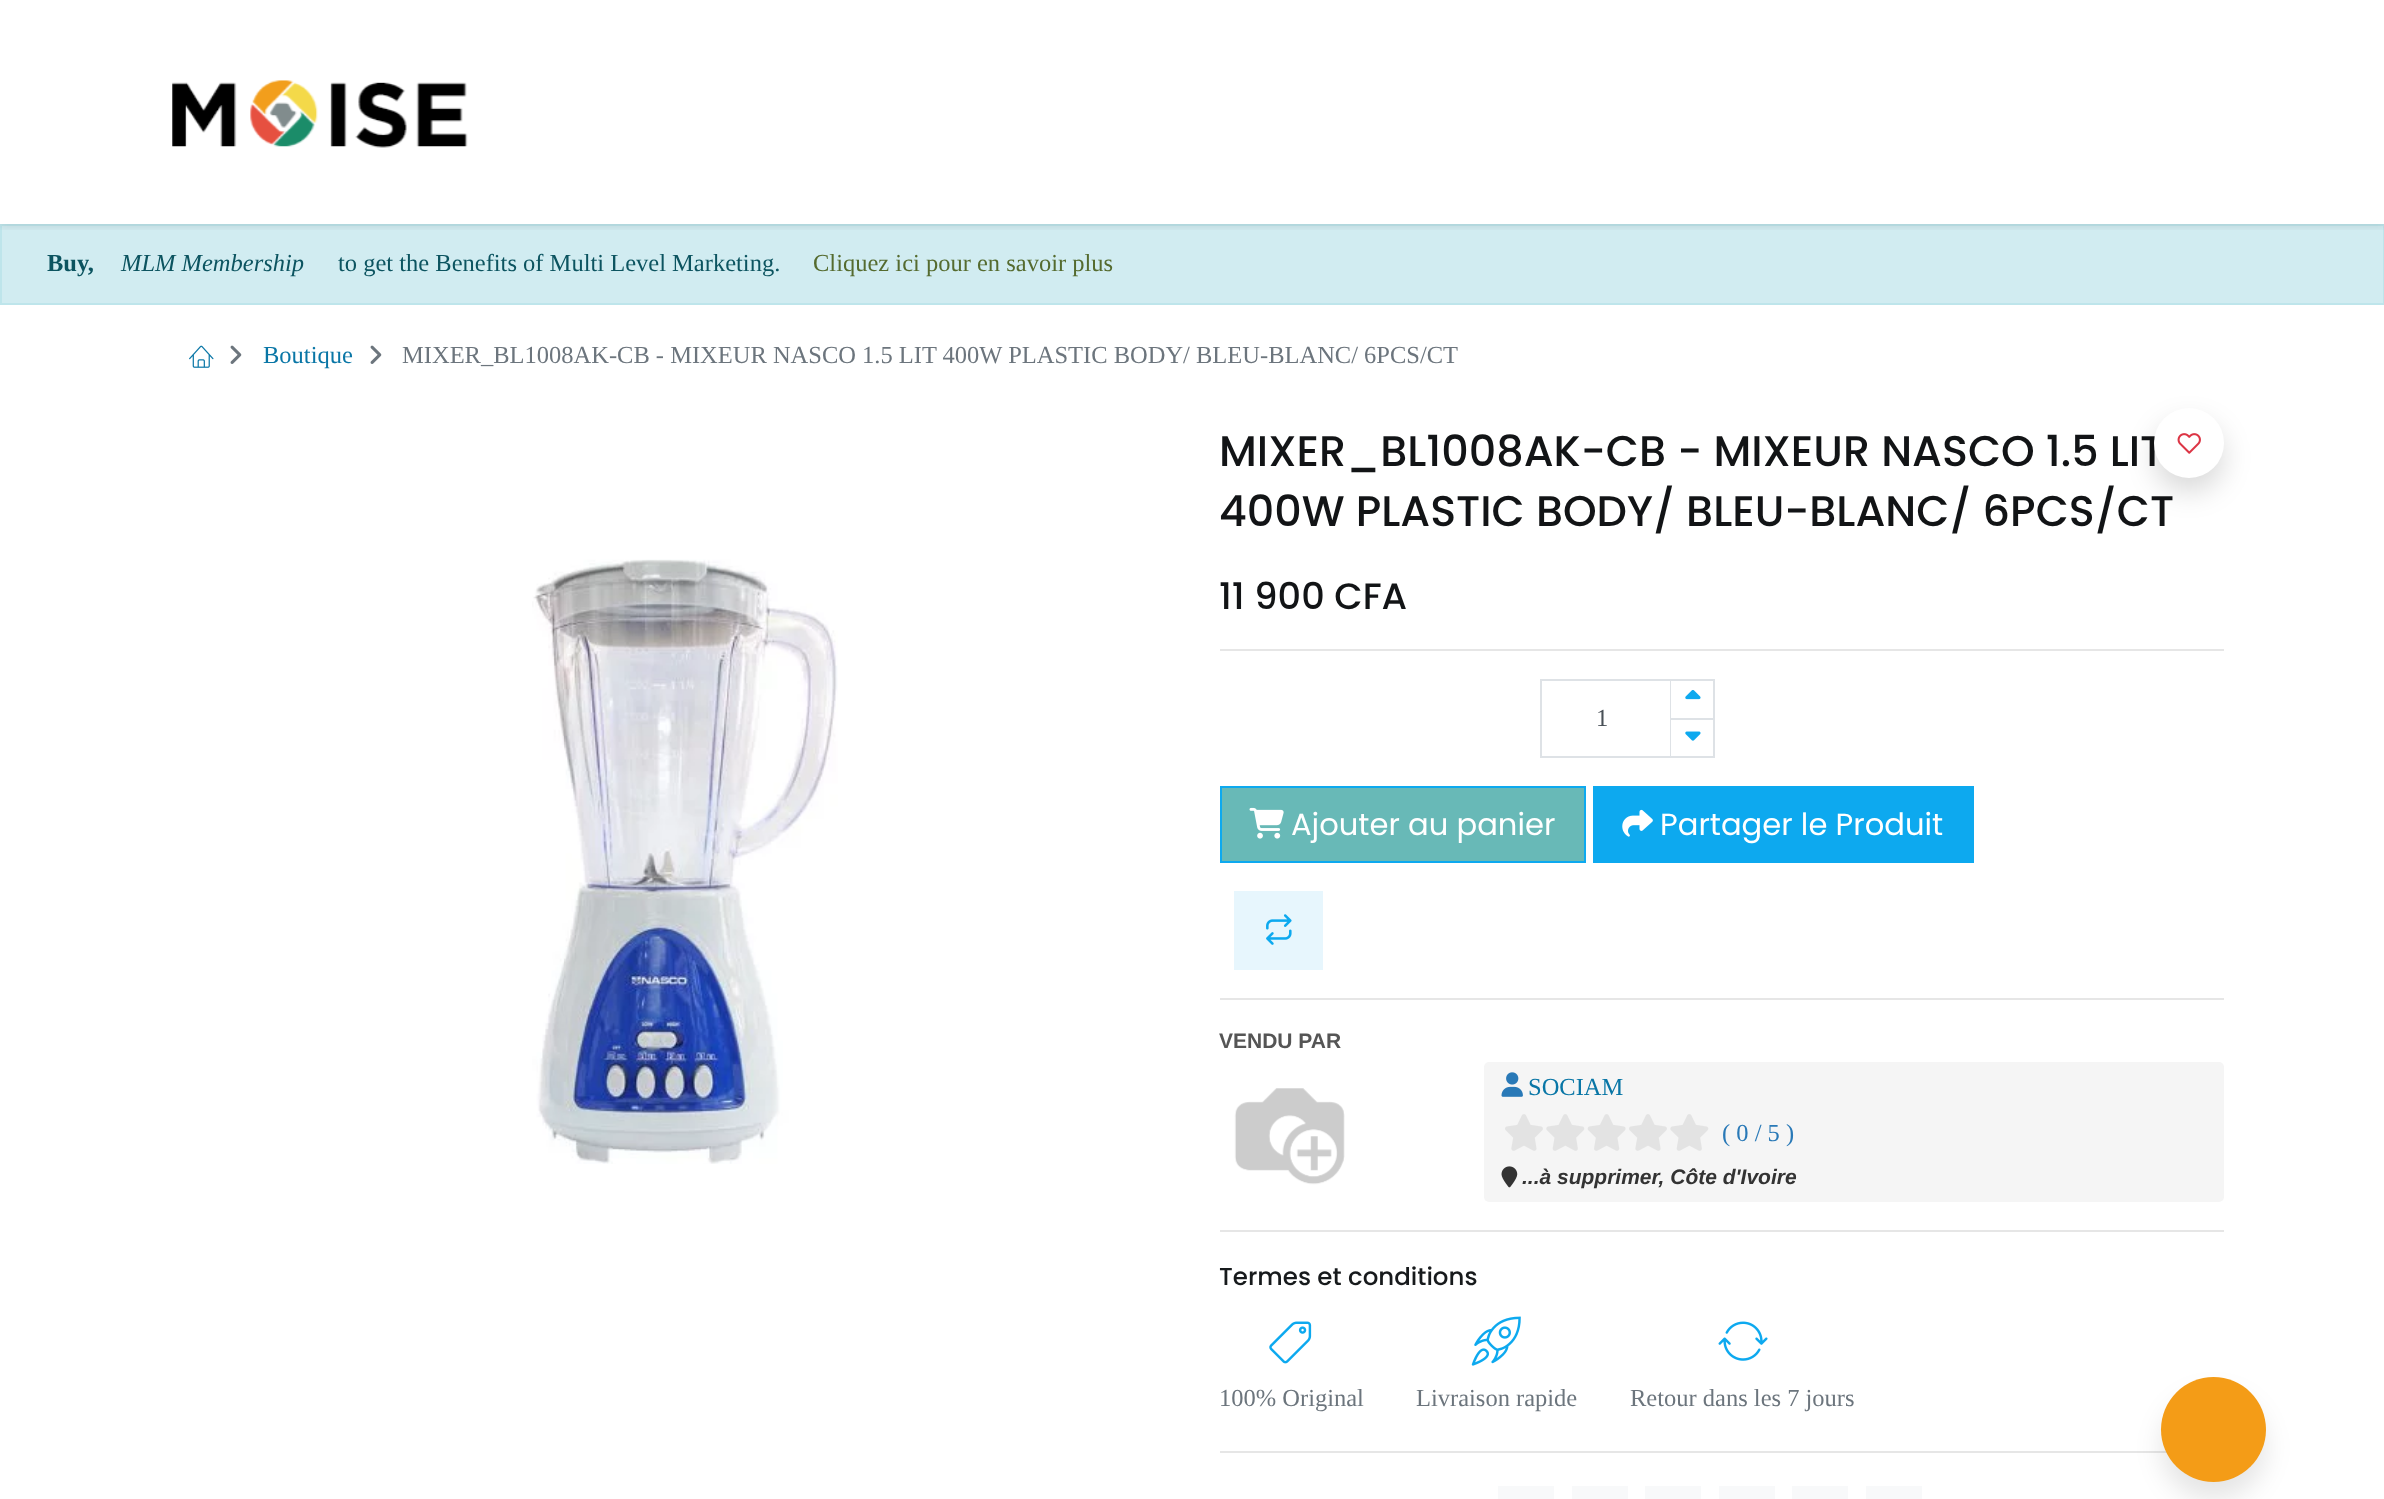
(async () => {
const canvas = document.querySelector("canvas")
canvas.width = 2384
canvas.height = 1499
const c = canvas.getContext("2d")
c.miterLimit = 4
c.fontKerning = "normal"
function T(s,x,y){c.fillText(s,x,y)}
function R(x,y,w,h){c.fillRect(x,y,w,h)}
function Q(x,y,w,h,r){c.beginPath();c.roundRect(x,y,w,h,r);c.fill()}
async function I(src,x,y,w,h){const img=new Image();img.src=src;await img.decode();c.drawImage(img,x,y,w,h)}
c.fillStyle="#fff"
R(0,0,2384,1499)
c.fillStyle="#d1ecf1"
c.beginPath()
c.rect(1,225,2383,79)
c.fill()
c.strokeStyle="#bee5eb"
c.lineWidth=2
c.stroke()
c.save()
c.beginPath()
c.rect(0,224,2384,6)
c.clip()
c.fillStyle="#00000012"
c.filter="blur(3.5px)"
c.beginPath()
c.rect(0,4,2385,224)
c.fill()
c.filter="none"
c.restore()
await I("1.png",172,80,296,68)
c.font="bold 24.5px Liberation Serif"
c.fillStyle="#0c5460"
T("Buy,",47,271)
c.font="italic 24.5px Liberation Serif"
T("MLM Membership",121,271)
c.font="24.5px Liberation Serif"
T("to get the Benefits of Multi Level Marketing.",338,271)
c.fillStyle="#556b2f"
T("Cliquez ici pour en savoir plus",813,271)
await I("2.png",189,345,25,23)
await I("3.png",230,345,12,19)
c.fillStyle="#0976a6"
T("Boutique",263,363)
await I("3.png",370,345,12,19)
c.fillStyle="#6c757d"
T("MIXER_BL1008AK-CB - MIXEUR NASCO 1.5 LIT 400W PLASTIC BODY/ BLEU-BLANC/ 6PCS/CT",402,363)
await I("4.png",532,559,306,605)
c.font="500 42.9px Poppins"
c.fillStyle="#121416"
T("MIXER_BL1008AK-CB - MIXEUR NASCO 1.5 LIT",1219,466)
T("400W PLASTIC BODY/ BLEU-BLANC/ 6PCS/CT",1219,526)
c.fillStyle="#00000026"
c.filter="blur(14px)"
c.beginPath()
c.roundRect(2154,422,70,70,35)
c.fill()
c.filter="none"
c.fillStyle="#fff"
c.beginPath()
c.arc(2189,443,35,0,7)
c.fill()
await I("5.png",2177,433,24,21)
c.fillStyle="#e7f6fd"
R(1234,891,89,79)
await I("6.png",1266,914,26,31)
c.font="500 36.75px Poppins"
c.fillStyle="#121416"
T("11 900 CFA",1219,609)
c.fillStyle="#e6e6e6"
R(1220,649,1004,2)
c.strokeStyle="#dee2e6"
c.strokeRect(1541,680,173,77)
c.font="24.5px Liberation Serif"
c.fillStyle="#495057"
T("1",1596,726)
c.fillStyle="#dee2e6"
R(1670,718,1,38)
R(1670,718,43,2)
R(1670,681,2,38)
c.fillStyle="#fff"
R(1671,681,1,37)
await I("7.png",1685,690,16,10)
await I("8.png",1685,731,16,10)
c.fillStyle="#68b9b7"
c.beginPath()
c.rect(1221,787,364,75)
c.fill()
c.strokeStyle="#0da9ef"
c.stroke()
await I("9.png",1249,807,35,32)
c.font="30.6px Poppins"
c.fillStyle="#fff"
T("Ajouter au panier",1291,835)
c.fillStyle="#0da9ef"
R(1593,786,381,77)
await I("10.png",1622,809,31,28)
c.fillStyle="#fff"
T("Partager le Produit",1660,835)
c.fillStyle="#e6e6e6"
R(1220,998,1004,2)
c.font="bold 21px Liberation Sans"
c.fillStyle="#555"
T("VENDU PAR",1219,1048)
await I("11.png",1234,1088,111,97)
c.fillStyle="#f5f5f5"
Q(1484,1062,740,140,5)
await I("12.png",1501,1072,22,25)
c.font="24.5px Liberation Serif"
c.fillStyle="#0976a6"
T("SOCIAM",1528,1095)
await I("13.png",1505,1114,204,37)
c.fillStyle="#2979b7"
T("( 0 / 5 )",1722,1141)
await I("14.png",1501,1166,17,22)
c.font="italic bold 21px Liberation Sans"
c.fillStyle="#333"
T("...à supprimer, Côte d'Ivoire",1522,1184)
c.fillStyle="#e6e6e6"
R(1220,1230,1004,2)
c.font="500 24.5px Poppins"
c.fillStyle="#171a1c"
T("Termes et conditions",1219,1285)
await I("15.png",1269,1321,43,43)
c.font="24.5px Liberation Serif"
c.fillStyle="#6c757d"
T("100% Original",1219,1406)
await I("16.png",1471,1316,50,50)
T("Livraison rapide",1416,1406)
await I("17.png",1718,1321,50,40)
T("Retour dans les 7 jours",1630,1406)
c.fillStyle="#e6e6e6"
R(1220,1451,947,2)
c.fillStyle="#f8f9fa"
R(1498,1486,56,13)
R(1572,1486,56,13)
R(1645,1486,56,13)
R(1719,1486,56,13)
R(1792,1486,56,13)
R(1866,1486,56,13)
c.fillStyle="#0000001a"
c.filter="blur(13px)"
c.beginPath()
c.roundRect(2161,1395,105,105,52.5)
c.fill()
c.filter="none"
c.fillStyle="#f49c17"
c.beginPath()
c.arc(2213.5,1429.5,52.5,0,7)
c.fill()
})()
